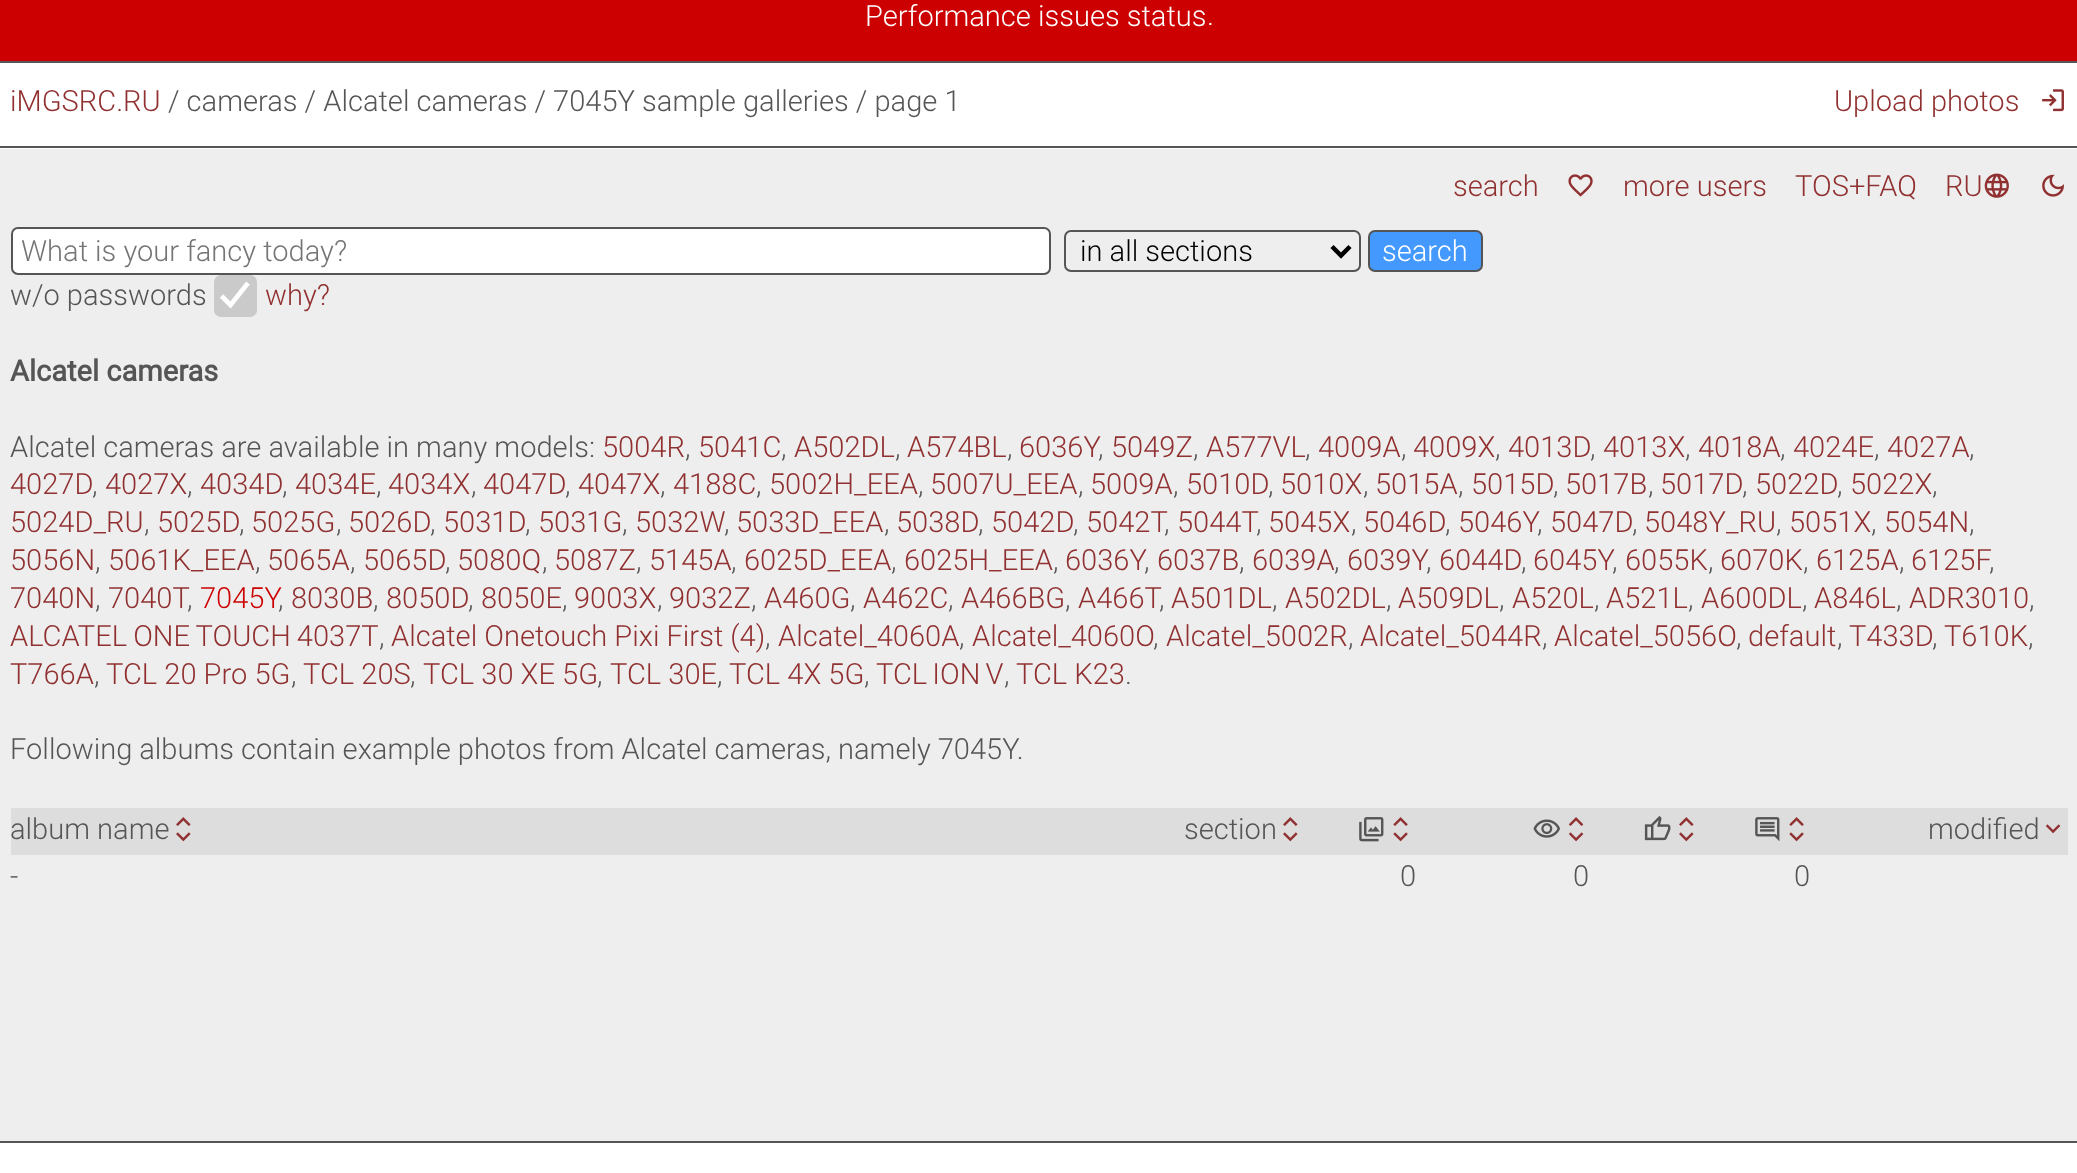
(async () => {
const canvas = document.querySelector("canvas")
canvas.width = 2077
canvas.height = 1173
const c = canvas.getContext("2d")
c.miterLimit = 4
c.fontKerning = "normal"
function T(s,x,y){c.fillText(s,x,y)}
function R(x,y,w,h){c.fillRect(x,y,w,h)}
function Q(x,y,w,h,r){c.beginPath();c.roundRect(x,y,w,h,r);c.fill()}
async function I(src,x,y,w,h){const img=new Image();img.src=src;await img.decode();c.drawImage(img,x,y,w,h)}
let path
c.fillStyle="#fff"
R(0,0,2077,1173)
c.fillStyle="#c00"
R(0,0,2077,61)
c.fillStyle="#555"
R(0,61,2077,2)
c.font="300 29.1px Roboto"
c.fillStyle="#fff"
T("Performance issues status",865,26)
T(".",1207,25)
c.fillStyle="#555"
R(0,146,2077,2)
c.fillStyle="#903030"
T("iMGSRC.RU",10,111)
c.fillStyle="#555"
T("/ cameras / Alcatel cameras / 7045Y sample galleries / page 1",168,111)
c.fillStyle="#903030"
T("Upload photos",1834,111)
await I("1.png",2042,89,22,23)
c.fillStyle="#eee"
R(0,149,2077,992)
c.fillStyle="#903030"
T("search",1453,196)
await I("2.png",1568,174,25,23)
T("more users",1623,196)
T("TOS+FAQ",1795,196)
T("RU",1945,196)
await I("3.png",1984,173,25,25)
await I("4.png",2042,174,22,23)
c.fillStyle="#fff"
c.beginPath()
c.roundRect(12,228,1038,46,6)
c.fill()
c.strokeStyle="#555"
c.lineWidth=2
c.stroke()
c.fillStyle="#757575"
T("What is your fancy today?",21,261)
c.beginPath()
c.roundRect(1065,231,295,40,6)
c.stroke()
path = new Path2D("M1332 246.5l9 9l9-9")
c.strokeStyle="#000"
c.lineWidth=4.5
c.stroke(path)
c.fillStyle="#000"
T("in all sections",1080,261)
c.fillStyle="#49f"
c.beginPath()
c.roundRect(1369,231,113,40,6)
c.fill()
c.strokeStyle="#555"
c.lineWidth=2
c.stroke()
c.fillStyle="#fff"
T("search",1382,261)
c.fillStyle="#555"
T("w/o passwords",10,305)
c.fillStyle="#cacaca"
Q(214,275,43,42,7)
path = new Path2D("M221.5 296l9 9l17.5-22")
c.strokeStyle="#fff"
c.lineWidth=4.7
c.stroke(path)
c.fillStyle="#903030"
T("why?",265,305)
c.font="bold 29.1px Roboto"
c.fillStyle="#555"
T("Alcatel cameras",10,381)
c.font="300 29.1px Roboto"
T("Alcatel cameras are available in many models:",10,457)
c.fillStyle="#903030"
T("5004R",602,457)
c.fillStyle="#555"
T(",",685,457)
c.fillStyle="#903030"
T("5041C",698,457)
c.fillStyle="#555"
T(",",781,457)
c.fillStyle="#903030"
T("A502DL",794,457)
c.fillStyle="#555"
T(",",895,457)
c.fillStyle="#903030"
T("A574BL",907,457)
c.fillStyle="#555"
T(",",1007,457)
c.fillStyle="#903030"
T("6036Y",1019,457)
T("5049Z",1111,457)
T("A577VL",1206,457)
T("4009A",1318,457)
T("4009X",1413,457)
T("4013D",1508,457)
T("4013X",1603,457)
T("4018A",1698,457)
T("4024E",1793,457)
T("4027A",1887,457)
c.fillStyle="#555"
T(",",1098,457)
T(",",1193,457)
T(",",1305,457)
T(",",1401,457)
T(",",1495,457)
T(",",1590,457)
T(",",1685,457)
T(",",1780,457)
T(",",1874,457)
T(",",1969,457)
c.fillStyle="#903030"
T("4027D",10,494)
c.fillStyle="#555"
T(",",92,494)
c.fillStyle="#903030"
T("4027X",105,494)
c.fillStyle="#555"
T(",",187,494)
c.fillStyle="#903030"
T("4034D",200,494)
c.fillStyle="#555"
T(",",282,494)
c.fillStyle="#903030"
T("4034E",295,494)
c.fillStyle="#555"
T(",",376,494)
c.fillStyle="#903030"
T("4034X",388,494)
c.fillStyle="#555"
T(",",471,494)
c.fillStyle="#903030"
T("4047D",483,494)
c.fillStyle="#555"
T(",",565,494)
c.fillStyle="#903030"
T("4047X",578,494)
c.fillStyle="#555"
T(",",660,494)
c.fillStyle="#903030"
T("4188C",673,494)
c.fillStyle="#555"
T(",",756,494)
c.fillStyle="#903030"
T("5002H_EEA",769,494)
c.fillStyle="#555"
T(",",918,494)
c.fillStyle="#903030"
T("5007U_EEA",930,494)
c.fillStyle="#555"
T(",",1078,494)
c.fillStyle="#903030"
T("5009A",1090,494)
c.fillStyle="#555"
T(",",1173,494)
c.fillStyle="#903030"
T("5010D",1186,494)
c.fillStyle="#555"
T(",",1268,494)
c.fillStyle="#903030"
T("5010X",1280,494)
c.fillStyle="#555"
T(",",1363,494)
c.fillStyle="#903030"
T("5015A",1375,494)
c.fillStyle="#555"
T(",",1458,494)
c.fillStyle="#903030"
T("5015D",1471,494)
c.fillStyle="#555"
T(",",1553,494)
c.fillStyle="#903030"
T("5017B",1565,494)
c.fillStyle="#555"
T(",",1648,494)
c.fillStyle="#903030"
T("5017D",1660,494)
c.fillStyle="#555"
T(",",1742,494)
c.fillStyle="#903030"
T("5022D",1755,494)
c.fillStyle="#555"
T(",",1837,494)
c.fillStyle="#903030"
T("5022X",1850,494)
c.fillStyle="#555"
T(",",1932,494)
c.fillStyle="#903030"
T("5024D_RU",10,532)
c.fillStyle="#555"
T(",",144,532)
c.fillStyle="#903030"
T("5025D",157,532)
c.fillStyle="#555"
T(",",239,532)
c.fillStyle="#903030"
T("5025G",251,532)
c.fillStyle="#555"
T(",",336,532)
c.fillStyle="#903030"
T("5026D",348,532)
c.fillStyle="#555"
T(",",430,532)
c.fillStyle="#903030"
T("5031D",443,532)
c.fillStyle="#555"
T(",",525,532)
c.fillStyle="#903030"
T("5031G",538,532)
c.fillStyle="#555"
T(",",622,532)
c.fillStyle="#903030"
T("5032W",635,532)
c.fillStyle="#555"
T(",",724,532)
c.fillStyle="#903030"
T("5033D_EEA",736,532)
c.fillStyle="#555"
T(",",884,532)
c.fillStyle="#903030"
T("5038D",896,532)
c.fillStyle="#555"
T(",",978,532)
c.fillStyle="#903030"
T("5042D",991,532)
c.fillStyle="#555"
T(",",1073,532)
c.fillStyle="#903030"
T("5042T",1086,532)
T("5044T",1177,532)
T("5045X",1268,532)
T("5046D",1363,532)
T("5046Y",1458,532)
T("5047D",1550,532)
T("5048Y_RU",1644,532)
T("5051X",1789,532)
T("5054N",1884,532)
c.fillStyle="#555"
T(",",1164,532)
T(",",1256,532)
T(",",1351,532)
T(",",1445,532)
T(",",1537,532)
T(",",1632,532)
T(",",1776,532)
T(",",1871,532)
T(",",1969,532)
c.fillStyle="#903030"
T("5056N",10,570)
c.fillStyle="#555"
T(",",95,570)
c.fillStyle="#903030"
T("5061K_EEA",108,570)
c.fillStyle="#555"
T(",",255,570)
c.fillStyle="#903030"
T("5065A",267,570)
c.fillStyle="#555"
T(",",350,570)
c.fillStyle="#903030"
T("5065D",363,570)
c.fillStyle="#555"
T(",",445,570)
c.fillStyle="#903030"
T("5080Q",457,570)
c.fillStyle="#555"
T(",",542,570)
c.fillStyle="#903030"
T("5087Z",554,570)
c.fillStyle="#555"
T(",",636,570)
c.fillStyle="#903030"
T("5145A",649,570)
c.fillStyle="#555"
T(",",731,570)
c.fillStyle="#903030"
T("6025D_EEA",744,570)
c.fillStyle="#555"
T(",",891,570)
c.fillStyle="#903030"
T("6025H_EEA",904,570)
c.fillStyle="#555"
T(",",1053,570)
c.fillStyle="#903030"
T("6036Y",1065,570)
T("6037B",1157,570)
T("6039A",1252,570)
T("6039Y",1347,570)
T("6044D",1439,570)
T("6045Y",1533,570)
T("6055K",1625,570)
T("6070K",1720,570)
T("6125A",1816,570)
T("6125F",1911,570)
c.fillStyle="#555"
T(",",1144,570)
T(",",1239,570)
T(",",1334,570)
T(",",1426,570)
T(",",1521,570)
T(",",1612,570)
T(",",1708,570)
T(",",1803,570)
T(",",1899,570)
T(",",1989,570)
c.fillStyle="#903030"
T("7040N",10,608)
c.fillStyle="#555"
T(",",95,608)
c.fillStyle="#903030"
T("7040T",108,608)
c.fillStyle="#c00"
T("7045Y",200,608)
c.fillStyle="#903030"
T("8030B",291,608)
T("8050D",386,608)
T("8050E",481,608)
T("9003X",574,608)
T("9032Z",669,608)
T("A460G",764,608)
T("A462C",863,608)
T("A466BG",961,608)
T("A466T",1078,608)
T("A501DL",1171,608)
T("A502DL",1285,608)
T("A509DL",1398,608)
T("A520L",1512,608)
T("A521L",1606,608)
T("A600DL",1701,608)
T("A846L",1814,608)
T("ADR3010",1909,608)
c.fillStyle="#555"
T(",",187,608)
T(",",278,608)
T(",",373,608)
T(",",468,608)
T(",",562,608)
T(",",657,608)
T(",",751,608)
T(",",850,608)
T(",",948,608)
T(",",1065,608)
T(",",1159,608)
T(",",1272,608)
T(",",1386,608)
T(",",1499,608)
T(",",1594,608)
T(",",1688,608)
T(",",1802,608)
T(",",1896,608)
T(",",2029,608)
c.wordSpacing="-1px"
c.fillStyle="#903030"
T("ALCATEL ONE TOUCH 4037T",10,646)
c.wordSpacing="0px"
c.fillStyle="#555"
T(",",379,646)
c.fillStyle="#903030"
T("Alcatel Onetouch Pixi First (4)",391,646)
c.fillStyle="#555"
T(",",765,646)
c.fillStyle="#903030"
T("Alcatel_4060A",778,646)
c.fillStyle="#555"
T(",",959,646)
c.fillStyle="#903030"
T("Alcatel_4060O",972,646)
c.fillStyle="#555"
T(",",1153,646)
c.fillStyle="#903030"
T("Alcatel_5002R",1166,646)
c.fillStyle="#555"
T(",",1348,646)
c.fillStyle="#903030"
T("Alcatel_5044R",1360,646)
c.fillStyle="#555"
T(",",1542,646)
c.fillStyle="#903030"
T("Alcatel_5056O",1554,646)
c.fillStyle="#555"
T(",",1736,646)
c.fillStyle="#903030"
T("default",1748,646)
c.fillStyle="#555"
T(",",1837,646)
c.fillStyle="#903030"
T("T433D",1849,646)
c.fillStyle="#555"
T(",",1932,646)
c.fillStyle="#903030"
T("T610K",1944,646)
c.fillStyle="#555"
T(",",2028,646)
c.fillStyle="#903030"
T("T766A",10,684)
c.fillStyle="#555"
T(",",94,684)
c.fillStyle="#903030"
T("TCL 20 Pro 5G",106,684)
c.fillStyle="#555"
T(",",291,684)
c.fillStyle="#903030"
T("TCL 20S",303,684)
c.fillStyle="#555"
T(",",410,684)
c.fillStyle="#903030"
T("TCL 30 XE 5G",423,684)
c.fillStyle="#555"
T(",",597,684)
c.fillStyle="#903030"
T("TCL 30E",610,684)
c.fillStyle="#555"
T(",",717,684)
c.fillStyle="#903030"
T("TCL 4X 5G",729,684)
c.fillStyle="#555"
T(",",864,684)
c.wordSpacing="-2px"
c.fillStyle="#903030"
T("TCL ION V",876,684)
c.wordSpacing="0px"
c.fillStyle="#555"
T(",",1004,684)
c.fillStyle="#903030"
T("TCL K23",1016,684)
c.fillStyle="#555"
T(".",1125,684)
c.wordSpacing="-0.1px"
T("Following albums contain example photos from Alcatel cameras, namely 7045Y.",10,759)
c.fillStyle="#ddd"
R(11,808,2057,47)
c.wordSpacing="0px"
c.fillStyle="#555"
T("album name",10,839)
await I("5.png",176,817,15,25)
T("section",1184,839)
await I("5.png",1283,817,15,25)
await I("6.png",1359,817,25,25)
await I("7.png",1393,817,15,25)
await I("8.png",1533,819,28,19)
await I("9.png",1568,817,16,25)
await I("10.png",1644,816,27,25)
await I("5.png",1679,817,15,25)
await I("11.png",1755,817,25,25)
await I("7.png",1789,817,15,25)
T("modified",1928,839)
await I("12.png",2045,824,16,10)
T("-",10,886)
T("0",1400,886)
T("0",1573,886)
T("0",1794,886)
R(0,1141,2077,2)
})()
